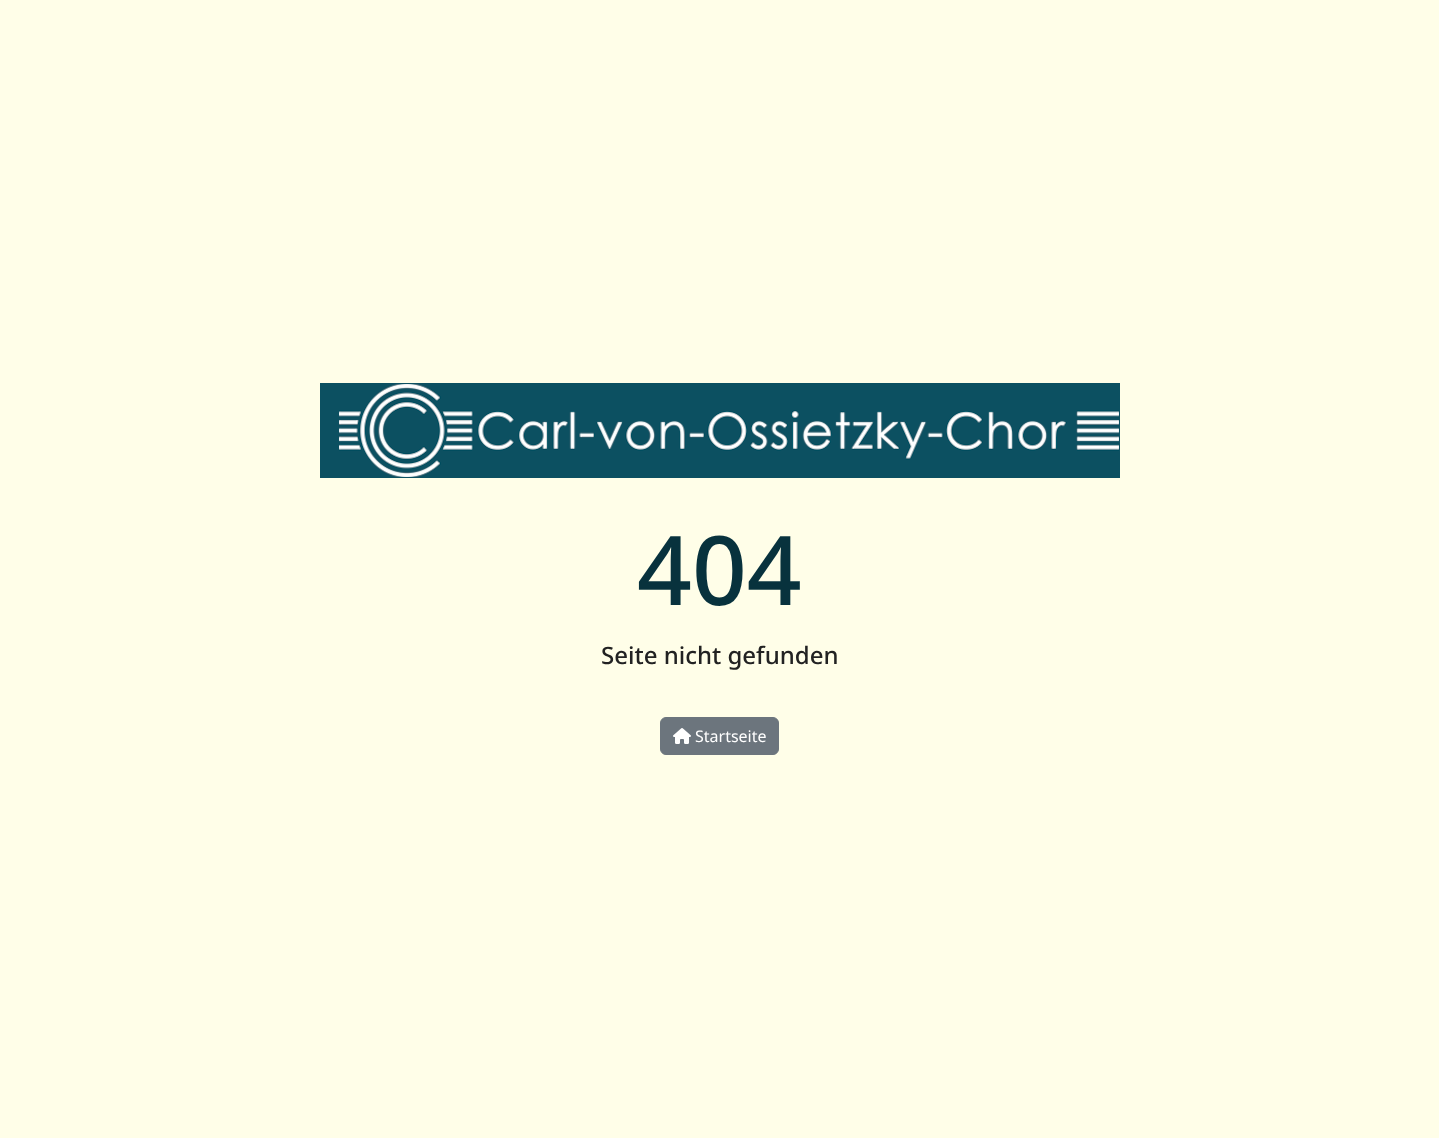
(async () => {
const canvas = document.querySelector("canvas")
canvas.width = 1439
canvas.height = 1138
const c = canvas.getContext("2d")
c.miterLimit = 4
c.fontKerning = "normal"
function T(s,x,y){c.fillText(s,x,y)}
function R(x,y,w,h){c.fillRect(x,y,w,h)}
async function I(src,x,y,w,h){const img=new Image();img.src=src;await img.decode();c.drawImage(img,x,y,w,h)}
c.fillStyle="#fffee8"
R(0,0,1439,1138)
await I("1.png",320,383,800,95)
c.font="500 96px Noto Sans"
c.fillStyle="#08323d"
T("404",637,605)
c.font="500 24px Noto Sans"
c.fillStyle="#222"
T("Seite nicht gefunden",601,664)
c.fillStyle="#6c757d"
c.beginPath()
c.roundRect(660.5,717.5,118,37,5.5)
c.fill()
c.strokeStyle="#6c757d"
c.stroke()
await I("2.png",673,728,18,16)
c.font="16px Noto Sans"
c.fillStyle="#fff"
T("Startseite",695,742)
})()
